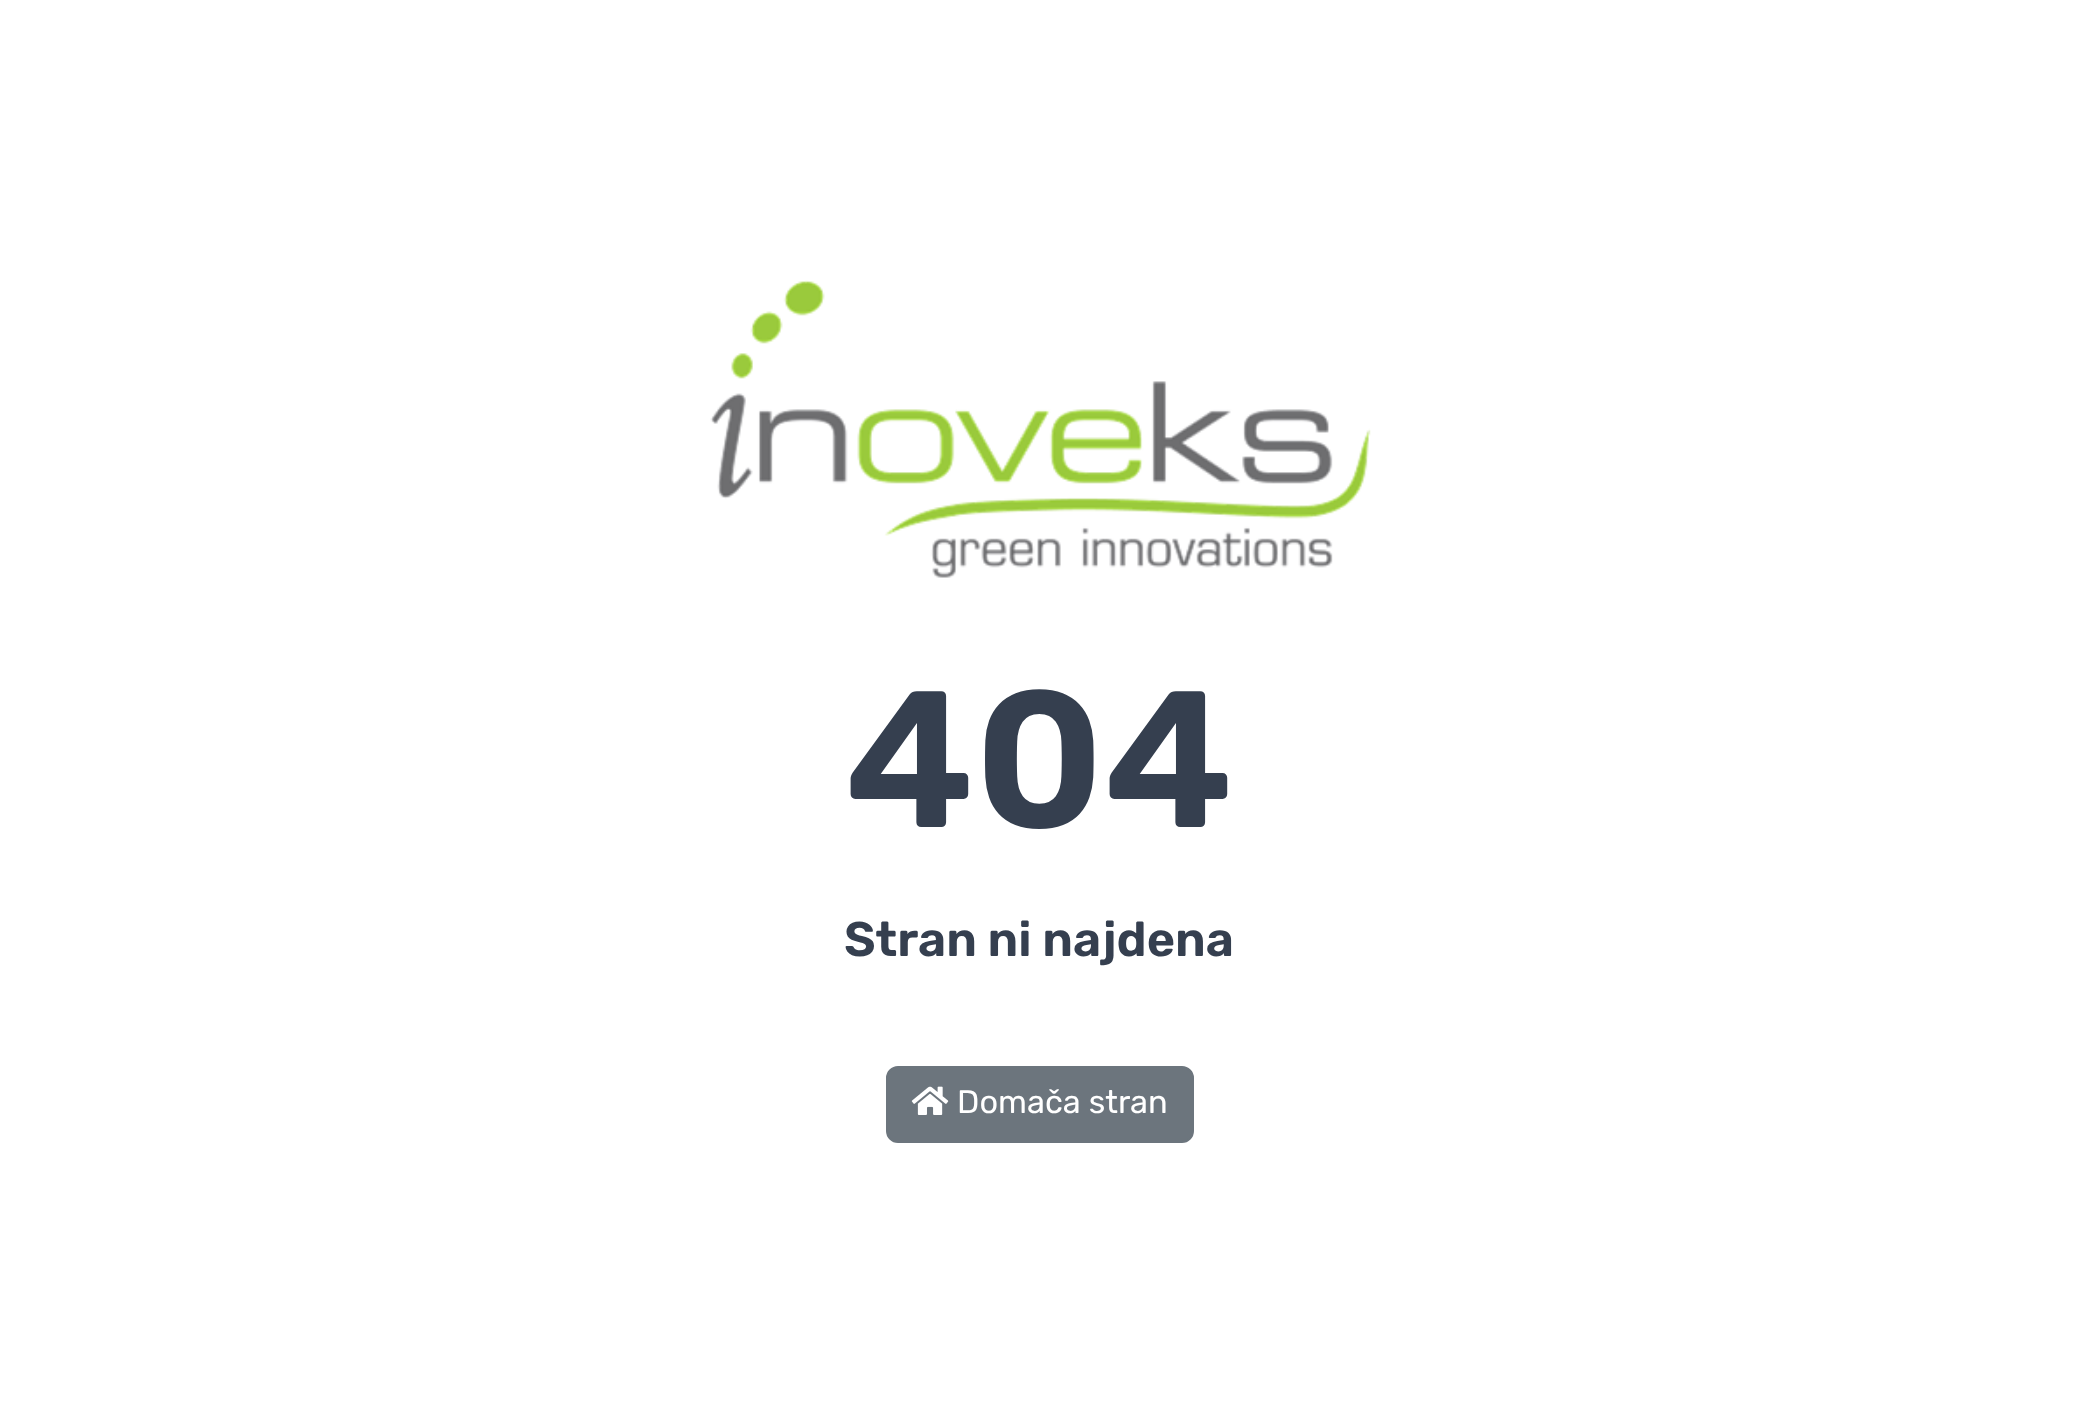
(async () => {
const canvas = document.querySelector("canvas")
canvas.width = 2079
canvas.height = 1422
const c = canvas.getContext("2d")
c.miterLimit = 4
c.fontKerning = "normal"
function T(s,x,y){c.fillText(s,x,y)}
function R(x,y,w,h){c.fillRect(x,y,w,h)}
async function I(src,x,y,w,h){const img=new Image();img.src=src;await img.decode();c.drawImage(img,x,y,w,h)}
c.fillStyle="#fff"
R(0,0,2079,1422)
await I("1.png",710,280,661,298)
c.font="600 194px Rubik"
c.fillStyle="#353f4f"
T("404",845,827)
c.font="600 48.5px Rubik"
T("Stran ni najdena",844,956)
c.fillStyle="#6c757d"
c.beginPath()
c.roundRect(887,1067,306,75,11)
c.fill()
c.strokeStyle="#6c757d"
c.lineWidth=2
c.stroke()
await I("2.png",911,1086,38,29)
c.font="32.5px Rubik"
c.fillStyle="#fff"
T("Domača stran",957,1113)
})()
